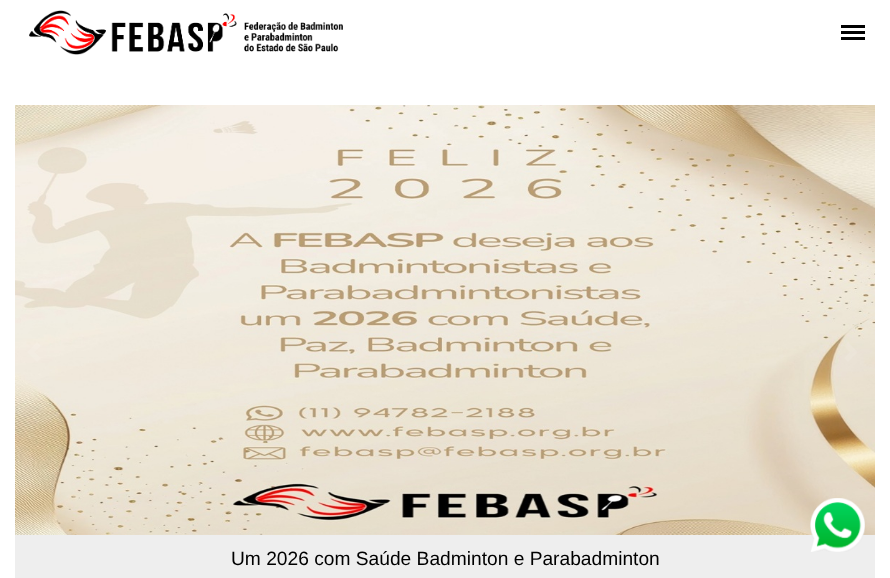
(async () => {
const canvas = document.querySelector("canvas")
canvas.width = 890
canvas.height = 578
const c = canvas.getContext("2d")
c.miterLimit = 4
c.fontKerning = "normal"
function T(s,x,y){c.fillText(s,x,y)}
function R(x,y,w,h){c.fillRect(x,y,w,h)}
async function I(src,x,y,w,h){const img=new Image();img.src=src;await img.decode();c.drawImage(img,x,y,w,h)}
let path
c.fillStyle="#fff"
R(0,0,890,578)
await I("1.png",29,10,314,45)
c.fillStyle="#000"
R(841,31,24,3)
R(841,25,24,3)
R(841,37,24,3)
await I("3.png",15,105,860,430)
c.fillStyle="#eee"
R(15,535,860,43)
await I("2.png",810,498,55,54)
c.fillStyle="#ffffff1a"
path = new Path2D("M37 342l-10 10l10 10l4-4l-6.5-6l6.5-6z")
c.fill(path)
path = new Path2D("M848 342l-4 4l6 6l-6 6l4 4l10-10z")
c.fill(path)
c.font="19.2px Liberation Sans"
c.fillStyle="#000"
T("Um 2026 com Saúde Badminton e Parabadminton",231,565)
})()
